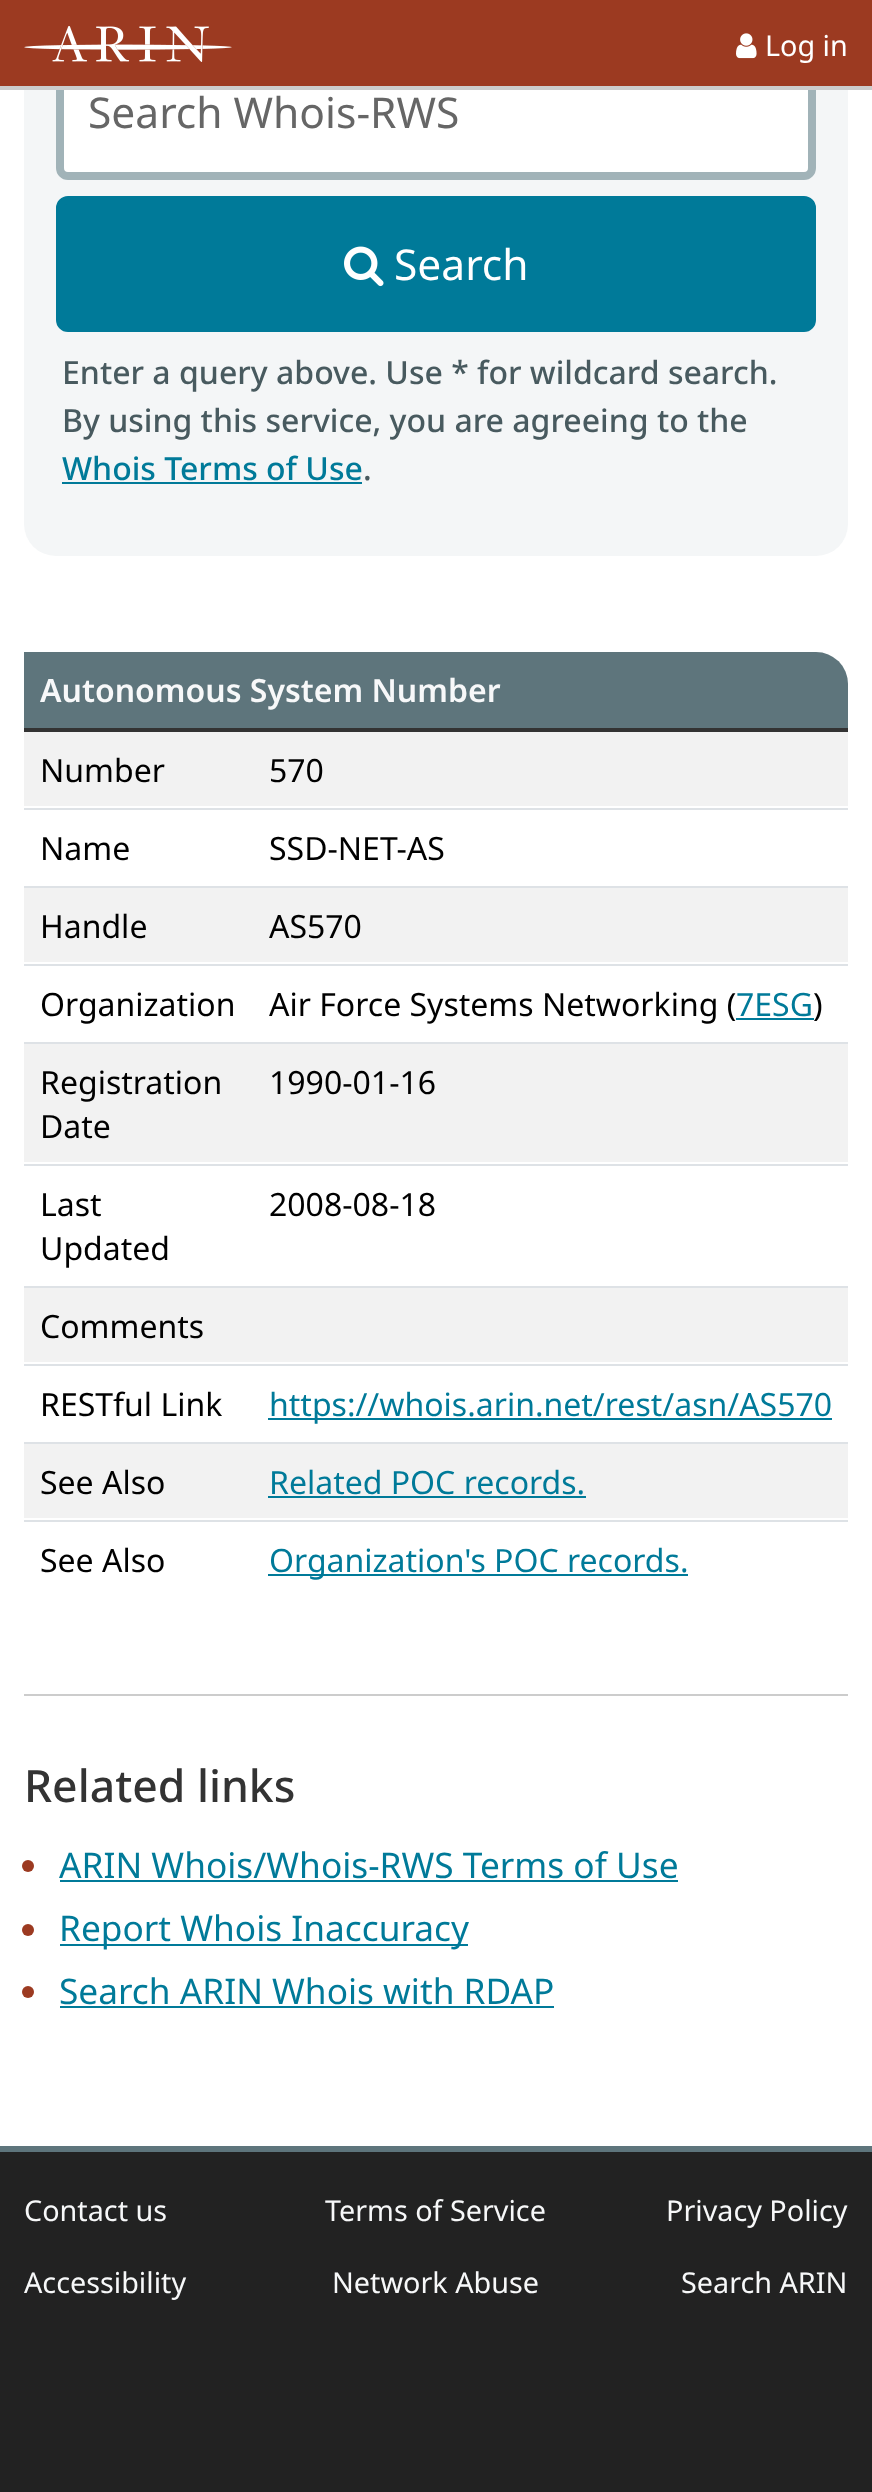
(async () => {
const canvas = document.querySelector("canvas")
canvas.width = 872
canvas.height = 2492
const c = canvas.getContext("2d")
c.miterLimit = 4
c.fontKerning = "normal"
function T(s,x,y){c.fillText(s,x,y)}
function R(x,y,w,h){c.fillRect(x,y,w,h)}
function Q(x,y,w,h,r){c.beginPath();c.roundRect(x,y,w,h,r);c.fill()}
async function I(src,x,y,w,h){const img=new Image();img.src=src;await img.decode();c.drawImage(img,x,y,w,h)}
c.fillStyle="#fff"
R(0,0,872,2492)
c.fillStyle="#f4f6f7"
Q(24,-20,824,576,32)
c.fillStyle="#fff"
c.beginPath()
c.roundRect(60,48,752,128,8)
c.fill()
c.strokeStyle="#a1b3b8"
c.lineWidth=8
c.stroke()
c.fillStyle="#9c3a21"
R(0,0,872,86)
c.fillStyle="#ccc"
R(0,86,872,4)
await I("1.png",24,26,208,36)
await I("2.png",736,33,21,26)
c.font="28.75px Noto Sans"
c.fillStyle="#fff"
T("Log in",765,56)
c.font="42.5px Noto Sans"
c.fillStyle="#666"
T("Search Whois-RWS",88,128)
c.fillStyle="#007a99"
c.beginPath()
c.roundRect(60,200,752,128,8)
c.fill()
c.strokeStyle="#007a99"
c.stroke()
await I("3.png",344,246,40,41)
c.fillStyle="#fff"
T("Search",394,280)
c.font="500 32px Noto Sans"
c.fillStyle="#485a5f"
T("Enter a query above. Use * for wildcard search.",62,384)
T("By using this service, you are agreeing to the",62,432)
c.fillStyle="#007a99"
T("Whois Terms of Use",62,480)
R(62,482,300,2)
c.fillStyle="#485a5f"
T(".",363,480)
c.fillStyle="#5e757c"
c.beginPath()
c.roundRect(24,652,824,76,[0,32,0,0])
c.fill()
c.font="600 32px Noto Sans"
c.fillStyle="#f7f8f9"
T("Autonomous System Number",40,702)
c.fillStyle="#333"
R(24,728,824,4)
c.fillStyle="#f2f2f2"
R(24,732,824,74)
c.font="32px Noto Sans"
c.fillStyle="#000"
T("Number",40,782)
c.fillStyle="#dee2e6"
R(24,808,824,2)
c.fillStyle="#000"
T("570",269,782)
T("Name",40,860)
c.fillStyle="#dee2e6"
R(24,886,824,2)
c.fillStyle="#000"
T("SSD-NET-AS",269,860)
c.fillStyle="#f2f2f2"
R(24,888,824,74)
c.fillStyle="#000"
T("Handle",40,938)
c.fillStyle="#dee2e6"
R(24,964,824,2)
c.fillStyle="#000"
T("AS570",269,938)
T("Organization",40,1016)
c.fillStyle="#dee2e6"
R(24,1042,824,2)
c.fillStyle="#000"
T("Air Force Systems Networking (",269,1016)
c.fillStyle="#007a99"
T("7ESG",736,1016)
R(736,1018,78,2)
c.fillStyle="#000"
T(")",813,1016)
c.fillStyle="#f2f2f2"
R(24,1044,824,118)
c.fillStyle="#000"
T("Registration",40,1094)
T("Date",40,1138)
c.fillStyle="#dee2e6"
R(24,1164,824,2)
c.fillStyle="#000"
T("1990-01-16",269,1094)
T("Last",40,1216)
T("Updated",40,1260)
c.fillStyle="#dee2e6"
R(24,1286,824,2)
c.fillStyle="#000"
T("2008-08-18",269,1216)
c.fillStyle="#f2f2f2"
R(24,1288,824,74)
c.fillStyle="#000"
T("Comments",40,1338)
c.fillStyle="#dee2e6"
R(24,1364,824,2)
c.fillStyle="#000"
T("RESTful Link",40,1416)
c.fillStyle="#dee2e6"
R(24,1442,824,2)
c.fillStyle="#007a99"
R(268,1418,564,2)
T("https://whois.arin.net/rest/asn/AS570",269,1416)
c.fillStyle="#f2f2f2"
R(24,1444,824,74)
c.fillStyle="#000"
T("See Also",40,1494)
c.fillStyle="#dee2e6"
R(24,1520,824,2)
c.fillStyle="#007a99"
T("Related POC records.",269,1494)
R(268,1496,318,2)
c.fillStyle="#000"
T("See Also",40,1572)
c.fillStyle="#007a99"
R(268,1574,420,2)
T("Organization's POC records.",269,1572)
c.fillStyle="#ccc"
R(24,1694,824,2)
c.font="500 44.5px Noto Sans"
c.fillStyle="#333"
T("Related links",24,1802)
c.fillStyle="#9c3a21"
c.beginPath()
c.arc(28,1866,6,0,7)
c.fill()
c.font="35.25px Noto Sans"
c.fillStyle="#007a99"
T("ARIN Whois/Whois-RWS Terms of Use",59,1878)
R(60,1880,618,2)
c.fillStyle="#9c3a21"
c.beginPath()
c.arc(28,1930,6,0,7)
c.fill()
c.fillStyle="#007a99"
R(60,1944,408,2)
T("Report Whois Inaccuracy",59,1941)
c.fillStyle="#9c3a21"
c.beginPath()
c.arc(28,1992,6,0,7)
c.fill()
c.fillStyle="#007a99"
T("Search ARIN Whois with RDAP",59,2004)
R(60,2006,494,2)
c.fillStyle="#222"
R(0,2152,872,340)
c.fillStyle="#5e757c"
R(0,2146,872,6)
c.font="28.75px Noto Sans"
c.fillStyle="#f7f8f9"
T("Contact us",24,2221)
T("Terms of Service",325,2221)
T("Privacy Policy",666,2221)
T("Accessibility",24,2293)
T("Network Abuse",332,2293)
T("Search ARIN",681,2293)
})()
